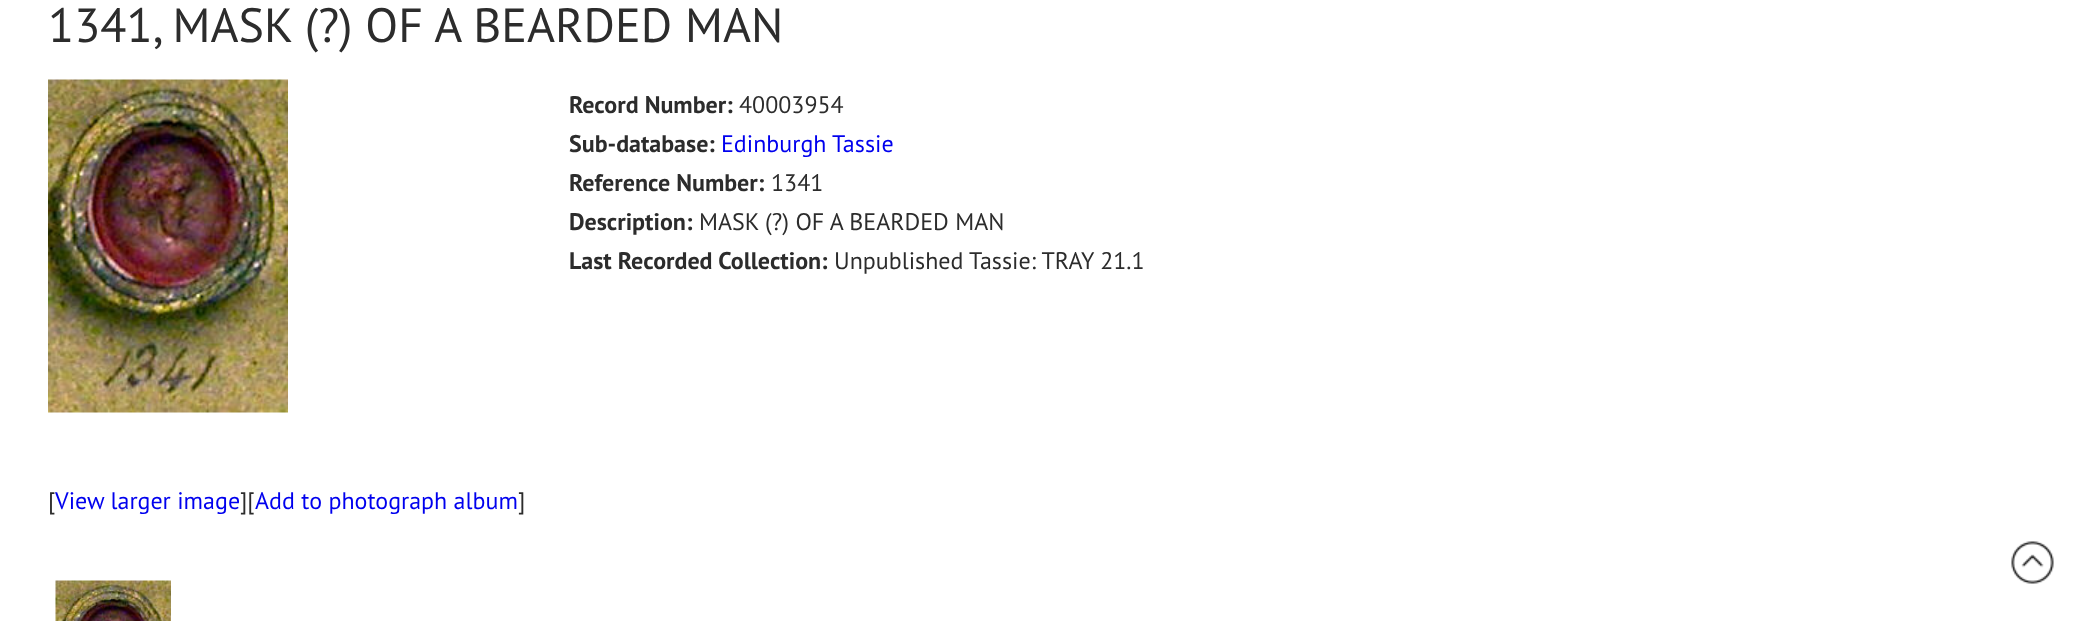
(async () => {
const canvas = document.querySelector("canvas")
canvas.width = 2084
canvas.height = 621
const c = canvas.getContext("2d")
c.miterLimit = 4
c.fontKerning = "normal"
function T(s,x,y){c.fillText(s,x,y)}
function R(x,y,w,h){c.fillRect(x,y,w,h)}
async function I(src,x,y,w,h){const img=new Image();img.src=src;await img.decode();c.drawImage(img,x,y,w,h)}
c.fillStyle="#fff"
R(0,0,2084,621)
c.font="48px PT Sans"
c.fillStyle="#2c2c2c"
T("1341, MASK (?) OF A BEARDED MAN",48,42)
c.font="bold 24px PT Sans"
T("Record Number:",569,113)
c.font="24px PT Sans"
T("40003954",739,113)
c.font="bold 24px PT Sans"
T("Sub-database:",569,152)
c.font="24px PT Sans"
c.fillStyle="#00e"
T("Edinburgh Tassie",721,152)
c.font="bold 24px PT Sans"
c.fillStyle="#2c2c2c"
T("Reference Number:",569,191)
c.font="24px PT Sans"
T("1341",771,191)
c.font="bold 24px PT Sans"
T("Description:",569,230)
c.font="24px PT Sans"
T("MASK (?) OF A BEARDED MAN",699,230)
c.font="bold 24px PT Sans"
T("Last Recorded Collection:",569,269)
c.font="24px PT Sans"
T("Unpublished Tassie: TRAY 21.1",834,269)
await I("1.png",48,79,240,334)
T("[",48,509)
c.fillStyle="#00e"
T("View larger image",55,509)
c.fillStyle="#2c2c2c"
T("][",240,509)
c.fillStyle="#00e"
T("Add to photograph album",255,509)
c.fillStyle="#2c2c2c"
T("]",518,509)
await I("2.png",55,580,116,41)
await I("3.png",2011,541,43,43)
})()
